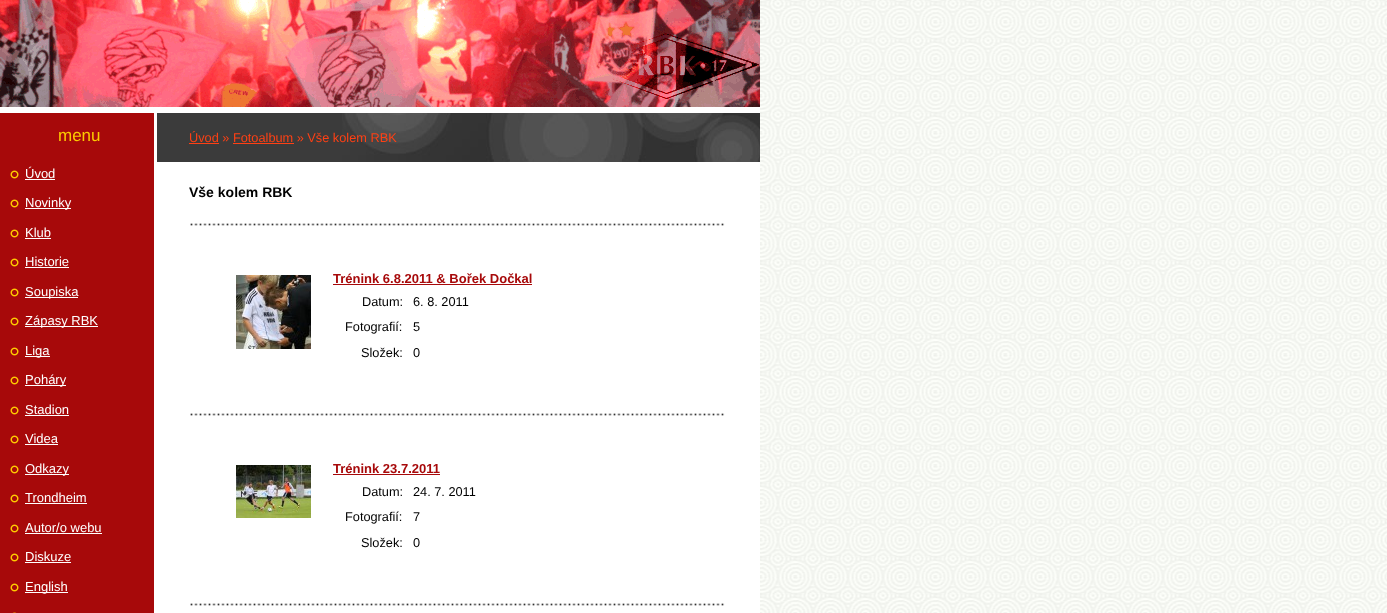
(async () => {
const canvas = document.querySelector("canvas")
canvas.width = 1387
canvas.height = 613
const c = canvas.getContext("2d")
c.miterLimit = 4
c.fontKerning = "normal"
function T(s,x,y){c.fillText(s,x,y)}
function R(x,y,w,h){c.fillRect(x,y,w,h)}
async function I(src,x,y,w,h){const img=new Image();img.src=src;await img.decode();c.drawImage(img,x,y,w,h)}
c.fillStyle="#fff"
R(0,0,1387,613)
await I("1.png",760,0,627,613)
c.fillStyle="#a7090a"
R(0,113,154,500)
await I("2.png",154,113,3,500)
await I("3.png",0,0,760,107)
c.font="17px Liberation Sans"
c.fillStyle="#fcca00"
T("menu",58,141)
await I("4.png",10,170,9,9)
c.font="13px Liberation Sans"
c.fillStyle="#fff"
T("Úvod",25,178)
R(25,179,30,1)
await I("4.png",10,199,9,9)
R(25,208,46,1)
T("Novinky",25,207)
await I("4.png",10,229,9,9)
T("Klub",25,237)
R(25,238,26,1)
await I("4.png",10,258,9,9)
T("Historie",25,266)
R(25,267,44,1)
await I("4.png",10,288,9,9)
R(25,297,53,1)
T("Soupiska",25,296)
await I("4.png",10,317,9,9)
R(25,326,73,1)
T("Zápasy RBK",25,325)
await I("4.png",10,347,9,9)
R(25,356,25,1)
T("Liga",25,355)
await I("4.png",10,376,9,9)
R(25,385,41,1)
T("Poháry",25,384)
await I("4.png",10,406,9,9)
T("Stadion",25,414)
R(25,415,44,1)
await I("4.png",10,435,9,9)
T("Videa",25,443)
R(25,444,33,1)
await I("4.png",10,465,9,9)
R(25,474,44,1)
T("Odkazy",25,473)
await I("4.png",10,494,9,9)
T("Trondheim",25,502)
R(25,503,62,1)
await I("4.png",10,524,9,9)
T("Autor/o webu",25,532)
R(25,533,77,1)
await I("4.png",10,553,9,9)
T("Diskuze",25,561)
R(25,562,46,1)
await I("4.png",10,583,9,9)
R(25,592,43,1)
T("English",25,591)
await I("5.png",12,612,5,1)
c.fillStyle="#3b3b3b"
R(157,113,185,49)
await I("6.png",342,113,418,49)
c.font="12.75px Liberation Sans"
c.fillStyle="#ff4014"
T("Úvod » Fotoalbum » Vše kolem RBK",189,142)
R(189,143,30,1)
R(233,143,61,1)
c.font="bold 14px Liberation Sans"
c.fillStyle="#000"
T("Vše kolem RBK",189,197)
await I("7.png",190,223,535,3)
await I("8.png",236,275,75,74)
c.font="bold 13px Liberation Sans"
c.fillStyle="#a7090a"
T("Trénink 6.8.2011 & Bořek Dočkal",333,283)
R(333,284,199,1)
c.font="12.75px Liberation Sans"
c.fillStyle="#000"
T("Datum:",362,306)
T("6. 8. 2011",413,306)
T("Fotografií:",345,331)
T("5",413,331)
T("Složek:",361,357)
T("0",413,357)
await I("7.png",190,413,535,3)
await I("9.png",236,465,75,53)
c.font="bold 13px Liberation Sans"
c.fillStyle="#a7090a"
T("Trénink 23.7.2011",333,473)
R(333,474,107,1)
c.font="12.75px Liberation Sans"
c.fillStyle="#000"
T("Datum:",362,496)
T("24. 7. 2011",413,496)
T("Fotografií:",345,521)
T("7",413,521)
T("Složek:",361,547)
T("0",413,547)
await I("7.png",190,603,535,3)
})()
